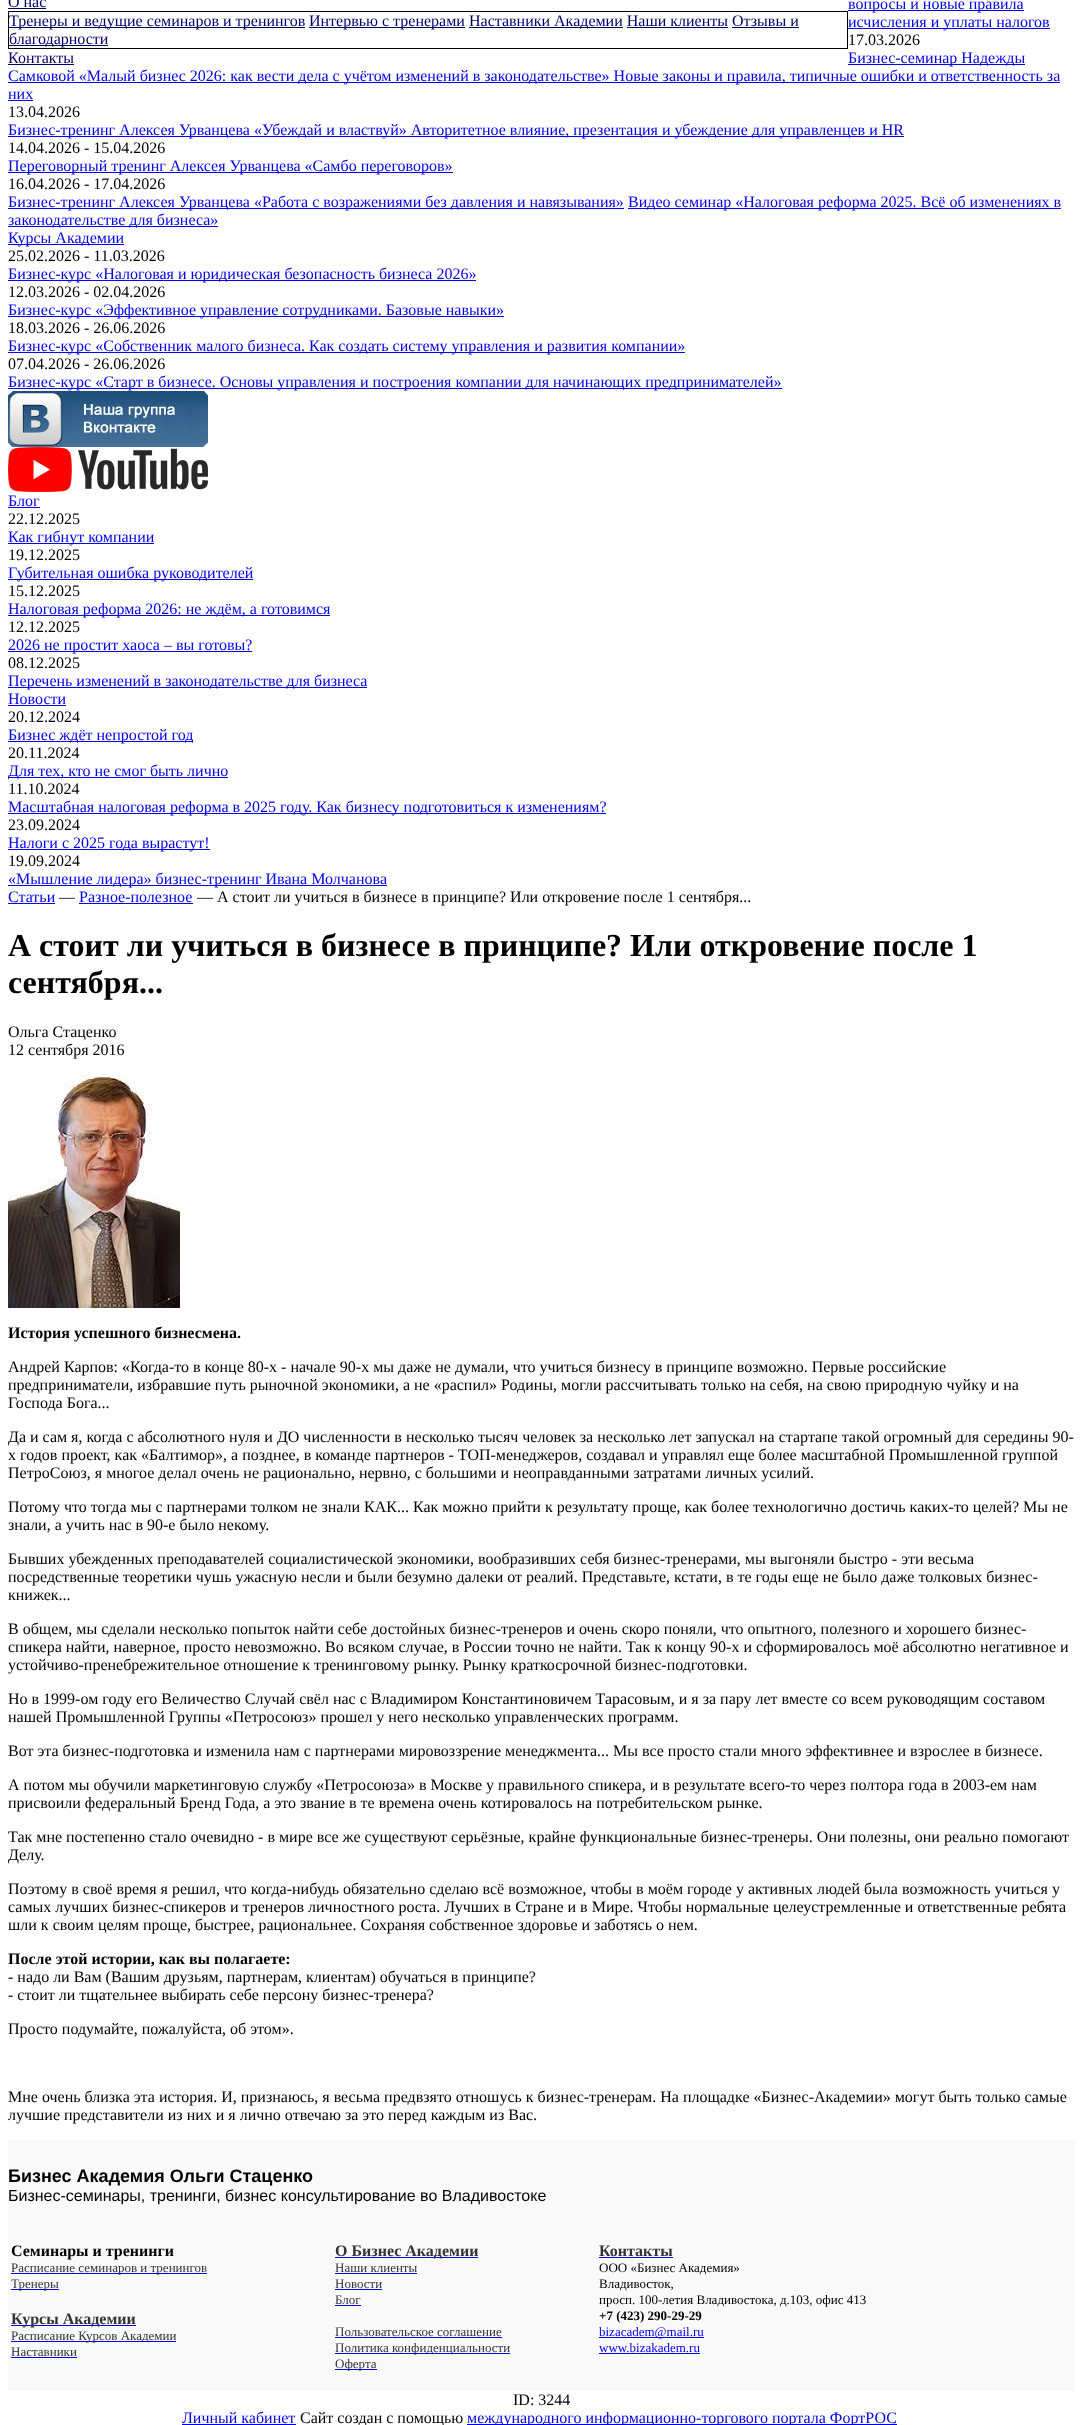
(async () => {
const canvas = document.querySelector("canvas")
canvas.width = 1083
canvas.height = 2425
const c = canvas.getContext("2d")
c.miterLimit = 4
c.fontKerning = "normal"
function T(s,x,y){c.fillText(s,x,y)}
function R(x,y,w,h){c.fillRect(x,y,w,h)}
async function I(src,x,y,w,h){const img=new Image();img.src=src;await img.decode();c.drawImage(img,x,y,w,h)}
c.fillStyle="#fff"
R(0,0,1083,2425)
c.font="16px Liberation Serif"
c.fillStyle="#000068"
T("О нас",8,7)
R(8,8,38,1)
c.strokeStyle="#000"
c.strokeRect(8.5,11.5,839,37)
R(9,27,296,1)
T("Тренеры и ведущие семинаров и тренингов",9,26)
R(309,27,156,1)
T("Интервью с тренерами",309,26)
R(469,27,154,1)
T("Наставники Академии Наши клиенты Отзывы и",469,26)
R(627,27,101,1)
R(9,45,99,1)
T("благодарности",9,44)
R(732,27,67,1)
T("Контакты",8,63)
R(8,64,66,1)
c.fillStyle="#00e"
R(848,10,176,1)
T("вопросы и новые правила",848,9)
R(848,28,202,1)
T("исчисления и уплаты налогов",848,27)
c.fillStyle="#000"
T("17.03.2026",848,45)
c.fillStyle="#00e"
R(848,64,177,1)
T("Бизнес-семинар Надежды",848,63)
R(8,82,1052,1)
T("Самковой «Малый бизнес 2026: как вести дела с учётом изменений в законодательстве» Новые законы и правила, типичные ошибки и ответственность за",8,81)
T("них",8,99)
R(8,100,25,1)
c.fillStyle="#000"
T("13.04.2026",8,117)
c.fillStyle="#00e"
R(8,136,896,1)
T("Бизнес-тренинг Алексея Урванцева «Убеждай и властвуй» Авторитетное влияние, презентация и убеждение для управленцев и HR",8,135)
c.fillStyle="#000"
T("14.04.2026 - 15.04.2026",8,153)
c.fillStyle="#00e"
R(8,172,445,1)
T("Переговорный тренинг Алексея Урванцева «Самбо переговоров»",8,171)
c.fillStyle="#000"
T("16.04.2026 - 17.04.2026",8,189)
c.fillStyle="#00e"
R(8,208,616,1)
T("Бизнес-тренинг Алексея Урванцева «Работа с возражениями без давления и навязывания»",8,207)
R(628,208,433,1)
T("Видео семинар «Налоговая реформа 2025. Всё об изменениях в",628,207)
R(8,226,210,1)
T("законодательстве для бизнеса»",8,225)
R(8,244,116,1)
T("Курсы Академии",8,243)
c.fillStyle="#000"
T("25.02.2026 - 11.03.2026",8,261)
c.fillStyle="#00e"
R(8,280,468,1)
T("Бизнес-курс «Налоговая и юридическая безопасность бизнеса 2026»",8,279)
c.fillStyle="#000"
T("12.03.2026 - 02.04.2026",8,297)
c.fillStyle="#00e"
R(8,316,496,1)
T("Бизнес-курс «Эффективное управление сотрудниками. Базовые навыки»",8,315)
c.fillStyle="#000"
T("18.03.2026 - 26.06.2026",8,333)
c.fillStyle="#00e"
R(8,352,677,1)
T("Бизнес-курс «Собственник малого бизнеса. Как создать систему управления и развития компании»",8,351)
c.fillStyle="#000"
T("07.04.2026 - 26.06.2026",8,369)
c.fillStyle="#00e"
R(8,388,774,1)
T("Бизнес-курс «Старт в бизнесе. Основы управления и построения компании для начинающих предпринимателей»",8,387)
await I("1.png",8,391,200,56)
await I("2.png",8,447,200,45)
T("Блог",8,506)
R(8,507,32,1)
c.fillStyle="#000"
T("22.12.2025",8,524)
c.fillStyle="#00e"
R(8,543,146,1)
T("Как гибнут компании",8,542)
c.fillStyle="#000"
T("19.12.2025",8,560)
c.fillStyle="#00e"
R(8,579,245,1)
T("Губительная ошибка руководителей",8,578)
c.fillStyle="#000"
T("15.12.2025",8,596)
c.fillStyle="#00e"
R(8,615,322,1)
T("Налоговая реформа 2026: не ждём, а готовимся",8,614)
c.fillStyle="#000"
T("12.12.2025",8,632)
c.fillStyle="#00e"
R(8,651,244,1)
T("2026 не простит хаоса – вы готовы?",8,650)
c.fillStyle="#000"
T("08.12.2025",8,668)
c.fillStyle="#00e"
R(8,687,359,1)
T("Перечень изменений в законодательстве для бизнеса",8,686)
T("Новости",8,704)
R(8,705,58,1)
c.fillStyle="#000"
T("20.12.2024",8,722)
c.fillStyle="#00e"
R(8,741,185,1)
T("Бизнес ждёт непростой год",8,740)
c.fillStyle="#000"
T("20.11.2024",8,758)
c.fillStyle="#00e"
R(8,777,220,1)
T("Для тех, кто не смог быть лично",8,776)
c.fillStyle="#000"
T("11.10.2024",8,794)
c.fillStyle="#00e"
R(8,813,598,1)
T("Масштабная налоговая реформа в 2025 году. Как бизнесу подготовиться к изменениям?",8,812)
c.fillStyle="#000"
T("23.09.2024",8,830)
c.fillStyle="#00e"
R(8,849,202,1)
T("Налоги с 2025 года вырастут!",8,848)
c.fillStyle="#000"
T("19.09.2024",8,866)
c.fillStyle="#00e"
R(8,885,379,1)
T("«Мышление лидера» бизнес-тренинг Ивана Молчанова",8,884)
T("Статьи",8,902)
R(8,903,47,1)
c.fillStyle="#000"
T("—",59,902)
c.fillStyle="#00e"
T("Разное-полезное",79,902)
R(79,903,114,1)
c.fillStyle="#000"
T("— А стоит ли учиться в бизнесе в принципе? Или откровение после 1 сентября...",197,902)
c.font="bold 32px Liberation Serif"
T("А стоит ли учиться в бизнесе в принципе? Или откровение после 1",8,956)
T("сентября...",8,993)
c.font="16px Liberation Serif"
T("Ольга Стаценко",8,1037)
T("12 сентября 2016",8,1055)
await I("3.png",8,1075,172,233)
c.font="bold 16px Liberation Serif"
T("История успешного бизнесмена.",8,1338)
c.font="16px Liberation Serif"
T("Андрей Карпов: «Когда-то в конце 80-х - начале 90-х мы даже не думали, что учиться бизнесу в принципе возможно. Первые российские",8,1372)
T("предприниматели, избравшие путь рыночной экономики, а не «распил» Родины, могли рассчитывать только на себя, на свою природную чуйку и на",8,1390)
T("Господа Бога...",8,1408)
T("Да и сам я, когда с абсолютного нуля и ДО численности в несколько тысяч человек за несколько лет запускал на стартапе такой огромный для середины 90-",8,1442)
T("х годов проект, как «Балтимор», а позднее, в команде партнеров - ТОП-менеджеров, создавал и управлял еще более масштабной Промышленной группой",8,1460)
T("ПетроСоюз, я многое делал очень не рационально, нервно, с большими и неоправданными затратами личных усилий.",8,1478)
T("Потому что тогда мы с партнерами толком не знали КАК... Как можно прийти к результату проще, как более технологично достичь каких-то целей? Мы не",8,1512)
T("знали, а учить нас в 90-е было некому.",8,1530)
T("Бывших убежденных преподавателей социалистической экономики, вообразивших себя бизнес-тренерами, мы выгоняли быстро - эти весьма",8,1564)
T("посредственные теоретики чушь ужасную несли и были безумно далеки от реалий. Представьте, кстати, в те годы еще не было даже толковых бизнес-",8,1582)
T("книжек...",8,1600)
T("В общем, мы сделали несколько попыток найти себе достойных бизнес-тренеров и очень скоро поняли, что опытного, полезного и хорошего бизнес-",8,1634)
T("спикера найти, наверное, просто невозможно. Во всяком случае, в России точно не найти. Так к концу 90-х и сформировалось моё абсолютно негативное и",8,1652)
T("устойчиво-пренебрежительное отношение к тренинговому рынку. Рынку краткосрочной бизнес-подготовки.",8,1670)
T("Но в 1999-ом году его Величество Случай свёл нас с Владимиром Константиновичем Тарасовым, и я за пару лет вместе со всем руководящим составом",8,1704)
T("нашей Промышленной Группы «Петросоюз» прошел у него несколько управленческих программ.",8,1722)
T("Вот эта бизнес-подготовка и изменила нам с партнерами мировоззрение менеджмента... Мы все просто стали много эффективнее и взрослее в бизнесе.",8,1756)
T("А потом мы обучили маркетинговую службу «Петросоюза» в Москве у правильного спикера, и в результате всего-то через полтора года в 2003-ем нам",8,1790)
T("присвоили федеральный Бренд Года, а это звание в те времена очень котировалось на потребительском рынке.",8,1808)
T("Так мне постепенно стало очевидно - в мире все же существуют серьёзные, крайне функциональные бизнес-тренеры. Они полезны, они реально помогают",8,1842)
T("Делу.",8,1860)
T("Поэтому в своё время я решил, что когда-нибудь обязательно сделаю всё возможное, чтобы в моём городе у активных людей была возможность учиться у",8,1894)
T("самых лучших бизнес-спикеров и тренеров личностного роста. Лучших в Стране и в Мире. Чтобы нормальные целеустремленные и ответственные ребята",8,1912)
T("шли к своим целям проще, быстрее, рациональнее. Сохраняя собственное здоровье и заботясь о нем.",8,1930)
c.font="bold 16px Liberation Serif"
T("После этой истории, как вы полагаете:",8,1964)
c.font="16px Liberation Serif"
T("- надо ли Вам (Вашим друзьям, партнерам, клиентам) обучаться в принципе?",8,1982)
T("- стоит ли тщательнее выбирать себе персону бизнес-тренера?",8,2000)
T("Просто подумайте, пожалуйста, об этом».",8,2034)
T("Мне очень близка эта история. И, признаюсь, я весьма предвзято отношусь к бизнес-тренерам. На площадке «Бизнес-Академии» могут быть только самые",8,2102)
T("лучшие представители из них и я лично отвечаю за это перед каждым из Вас.",8,2120)
c.fillStyle="#f9f9f9"
R(8,2140,1067,251)
c.font="bold 18px Liberation Sans"
c.fillStyle="#000"
T("Бизнес Академия Ольги Стаценко",8,2182)
c.font="16px Liberation Sans"
T("Бизнес-семинары, тренинги, бизнес консультирование во Владивостоке",8,2201)
c.font="bold 16px Liberation Serif"
T("Семинары и тренинги",11,2256)
c.fillStyle="#00e"
R(11,2273,196,1)
c.font="13px Liberation Serif"
c.fillStyle="#333"
T("Расписание семинаров и тренингов",11,2272)
c.fillStyle="#00e"
R(11,2289,48,1)
c.fillStyle="#333"
T("Тренеры",11,2288)
c.fillStyle="#00e"
R(11,2325,125,1)
c.font="bold 16px Liberation Serif"
c.fillStyle="#333"
T("Курсы Академии",11,2324)
c.fillStyle="#00e"
R(11,2341,165,1)
c.font="13px Liberation Serif"
c.fillStyle="#333"
T("Расписание Курсов Академии",11,2340)
T("Наставники",11,2356)
c.fillStyle="#00e"
R(11,2357,66,1)
R(335,2257,143,1)
c.font="bold 16px Liberation Serif"
c.fillStyle="#333"
T("О Бизнес Академии",335,2256)
c.font="13px Liberation Serif"
T("Наши клиенты",335,2272)
c.fillStyle="#00e"
R(335,2273,82,1)
c.fillStyle="#333"
T("Новости",335,2288)
c.fillStyle="#00e"
R(335,2289,47,1)
c.fillStyle="#333"
T("Блог",335,2304)
c.fillStyle="#00e"
R(335,2305,26,1)
c.fillStyle="#333"
T("Пользовательское соглашение",335,2336)
c.fillStyle="#00e"
R(335,2337,167,1)
R(335,2353,175,1)
c.fillStyle="#333"
T("Политика конфиденциальности",335,2352)
c.fillStyle="#00e"
R(335,2369,42,1)
c.fillStyle="#333"
T("Оферта",335,2368)
c.font="bold 16px Liberation Serif"
T("Контакты",599,2256)
c.fillStyle="#00e"
R(599,2257,74,1)
c.font="13px Liberation Serif"
c.fillStyle="#000"
T("ООО «Бизнес Академия»",599,2272)
T("Владивосток,",599,2288)
T("просп. 100-летия Владивостока, д.103, офис 413",599,2304)
c.font="bold 13px Liberation Serif"
T("+7 (423) 290-29-29",599,2320)
c.fillStyle="#00e"
R(599,2337,105,1)
c.font="13px Liberation Serif"
T("bizacadem@mail.ru",599,2336)
T("www.bizakadem.ru",599,2352)
R(599,2353,101,1)
c.font="16px Liberation Serif"
c.fillStyle="#000"
T("ID: 3244",513,2405)
c.fillStyle="#00e"
T("Личный кабинет",182,2423)
R(182,2424,114,1)
c.fillStyle="#000"
T("Сайт создан с помощью",300,2423)
c.fillStyle="#00e"
R(467,2424,430,1)
T("международного информационно-торгового портала ФортРОС",467,2423)
})()
